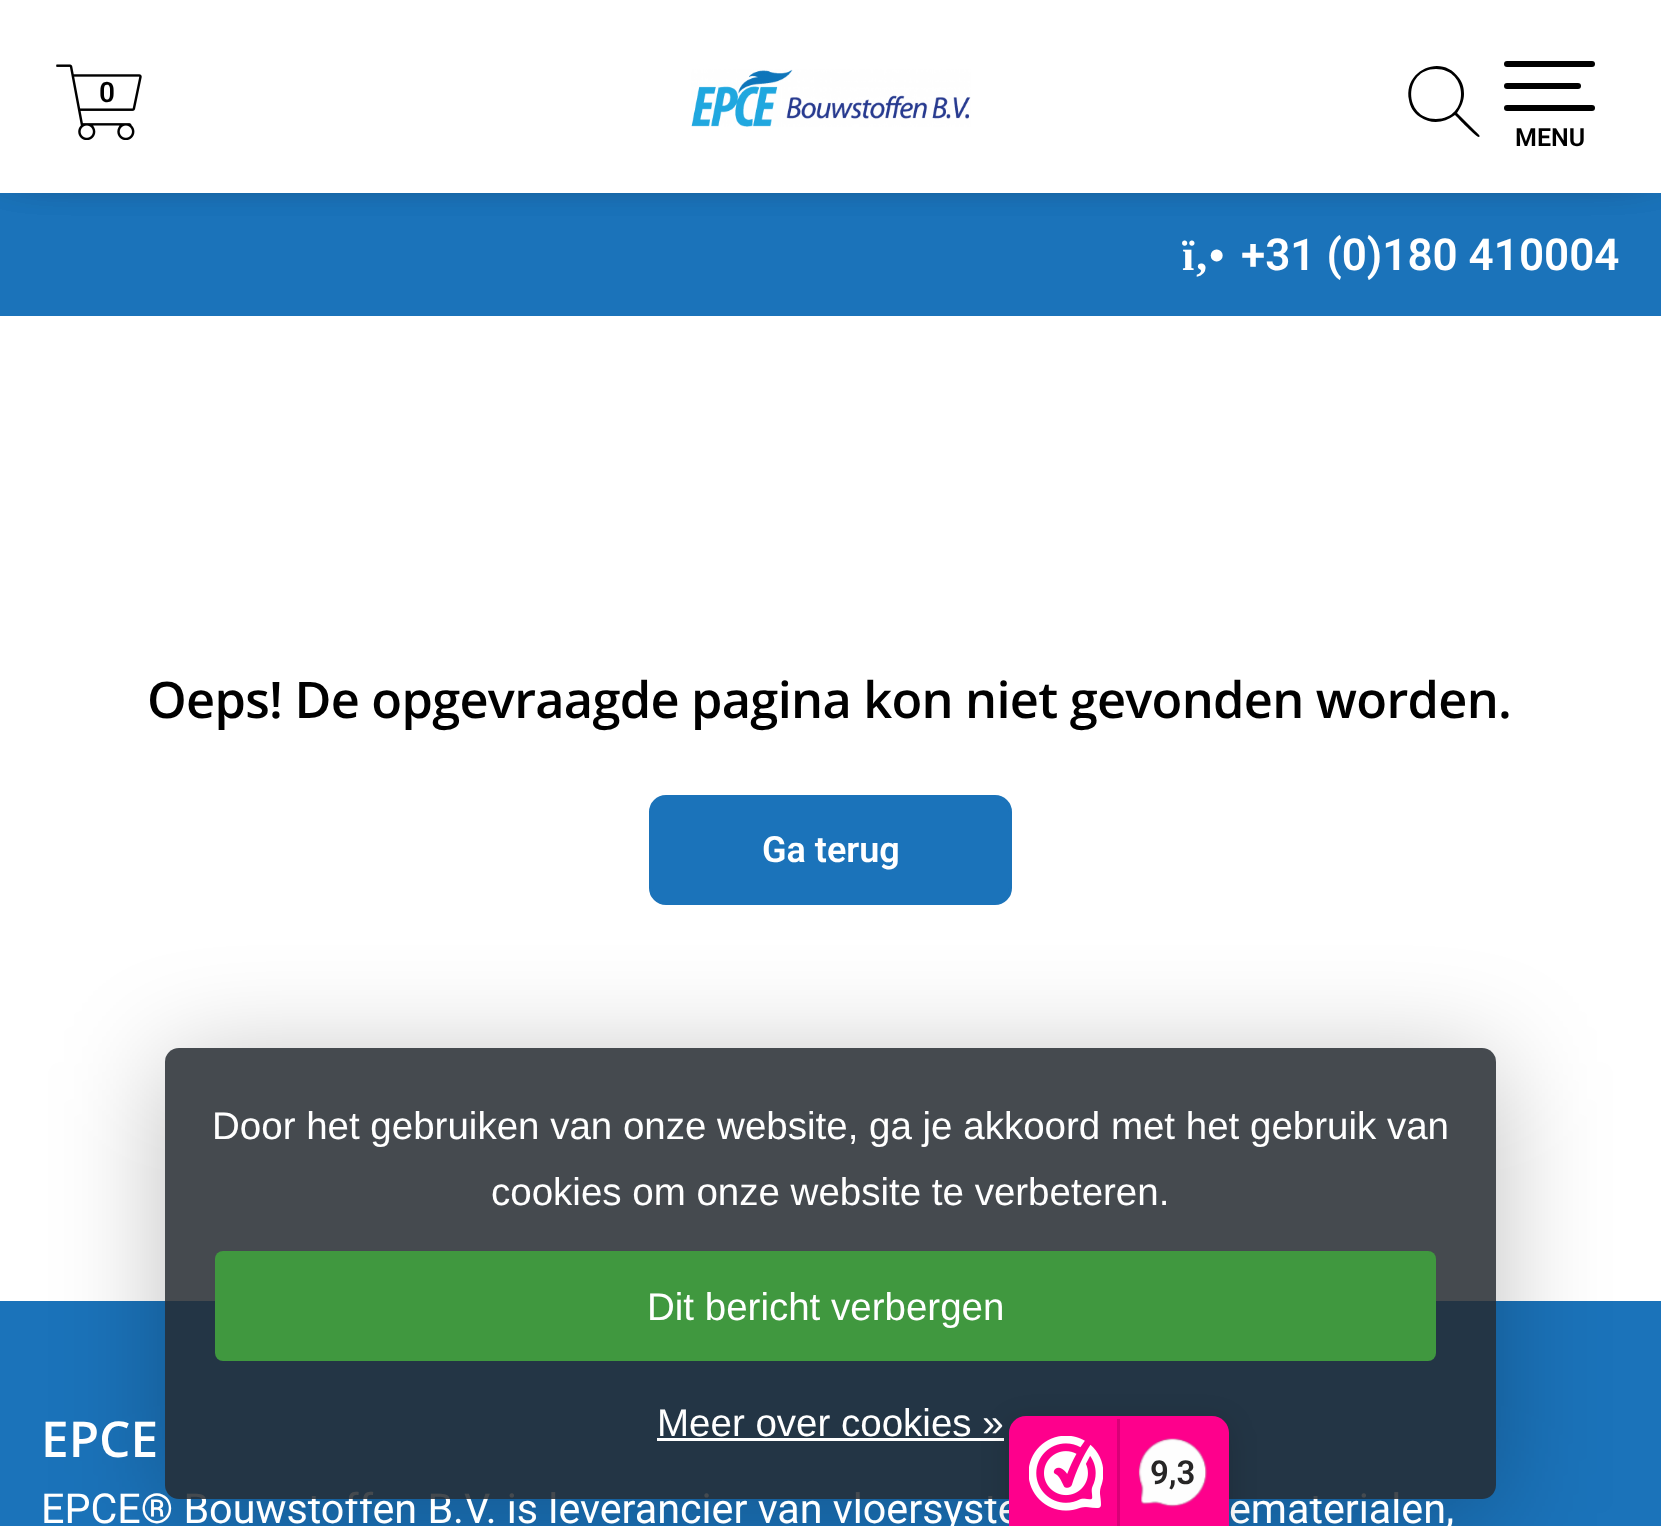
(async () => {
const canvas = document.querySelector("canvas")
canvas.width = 1661
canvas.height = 1526
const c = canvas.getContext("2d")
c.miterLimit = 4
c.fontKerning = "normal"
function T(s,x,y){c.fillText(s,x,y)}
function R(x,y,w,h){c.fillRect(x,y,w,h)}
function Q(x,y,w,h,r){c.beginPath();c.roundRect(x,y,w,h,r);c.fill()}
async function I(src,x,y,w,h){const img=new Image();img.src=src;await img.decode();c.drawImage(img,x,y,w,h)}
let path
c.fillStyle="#fff"
R(0,0,1661,1526)
c.fillStyle="#1b73ba"
R(0,193,1661,123)
c.fillStyle="#000"
c.filter="blur(27.5px)"
c.beginPath()
c.rect(17,17,1628,132)
c.fill()
c.filter="none"
c.filter="blur(27.5px)"
c.beginPath()
c.rect(17,17,1628,132)
c.fill()
c.filter="none"
c.fillStyle="#fff"
R(0,0,1661,193)
await I("1.png",691,69,280,58)
await I("2.png",56,64,86,76)
c.font="600 28px Roboto"
c.fillStyle="#000"
T("0",99,102)
path = new Path2D("M1464 94c0-5-1-11-5-16c-17-25-56-8-50 22c1 7 5 13 11 17c12 8 24 6 35-2c3 3 22 23 24 22c2-1-1-3-4-6l-18-18c4-6 7-12 7-19zm-28 25c-33 0-33-50 0-50c33 0 34 50 0 50z")
c.fill(path)
Q(1504,61,91,6,3)
Q(1504,83,77,6,3)
Q(1504,105,91,6,3)
c.font="600 25px Roboto"
T("MENU",1515,146)
c.font="bold 44px Liberation Serif"
c.fillStyle="#fff"
T("ï‚•",1182,270)
c.font="600 44px Roboto"
T("+31 (0)180 410004",1241,270)
c.letterSpacing="-0.7px"
c.wordSpacing="-0.25px"
c.font="600 50.5px Open Sans"
c.fillStyle="#000"
T("Oeps! De opgevraagde pagina kon niet gevonden worden.",147,718)
c.fillStyle="#1b73ba"
c.beginPath()
c.roundRect(650.5,796.5,360,107,15.5)
c.fill()
c.strokeStyle="#1b73ba"
c.lineWidth=3
c.stroke()
c.letterSpacing="0px"
c.wordSpacing="0px"
c.font="600 36px Roboto"
c.fillStyle="#fff"
T("Ga terug",762,862)
c.fillStyle="#1b73ba"
R(0,1301,1661,225)
c.save()
path = new Path2D("M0 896h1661v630h-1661zm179 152h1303c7.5 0 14 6.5 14 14v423c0 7.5-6.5 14-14 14h-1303c-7.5 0-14-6.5-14-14v-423c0-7.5 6.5-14 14-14z")
c.clip(path,"evenodd")
c.fillStyle="#00000040"
c.filter="blur(55px)"
c.beginPath()
c.roundRect(165,1062,1331,451,14)
c.fill()
c.filter="none"
c.restore()
c.font="41.25px Roboto"
c.fillStyle="#fff"
T("EPCE® Bouwstoffen B.V. is leverancier van vloersyste",41,1523)
T("ematerialen,",1229,1523)
c.fillStyle="#242a30d9"
Q(165,1048,1331,451,14)
c.font="38.5px Liberation Sans"
c.fillStyle="#fff"
T("Door het gebruiken van onze website, ga je akkoord met het gebruik van",212,1139)
T("cookies om onze website te verbeteren.",491,1205)
c.fillStyle="#40983f"
Q(215,1251,1221,110,8)
c.fillStyle="#fff"
T("Dit bericht verbergen",647,1320)
T("Meer over cookies »",657,1436)
R(657,1438,347,3)
c.font="600 49.5px Open Sans"
T("EPCE",41,1457)
c.fillStyle="#00000026"
c.filter="blur(14px)"
c.beginPath()
c.roundRect(1009,1422,220,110,17)
c.fill()
c.filter="none"
c.fillStyle="#fe008c"
c.beginPath()
c.roundRect(1009,1416,220,110,[17,17,0,0])
c.fill()
await I("3.png",1029,1436,74,75)
c.fillStyle="#d80077"
R(1117,1419,3,107)
await I("4.png",1138,1438,70,69)
c.font="600 33px Roboto"
c.fillStyle="#272626"
T("9,3",1150,1484)
})()
